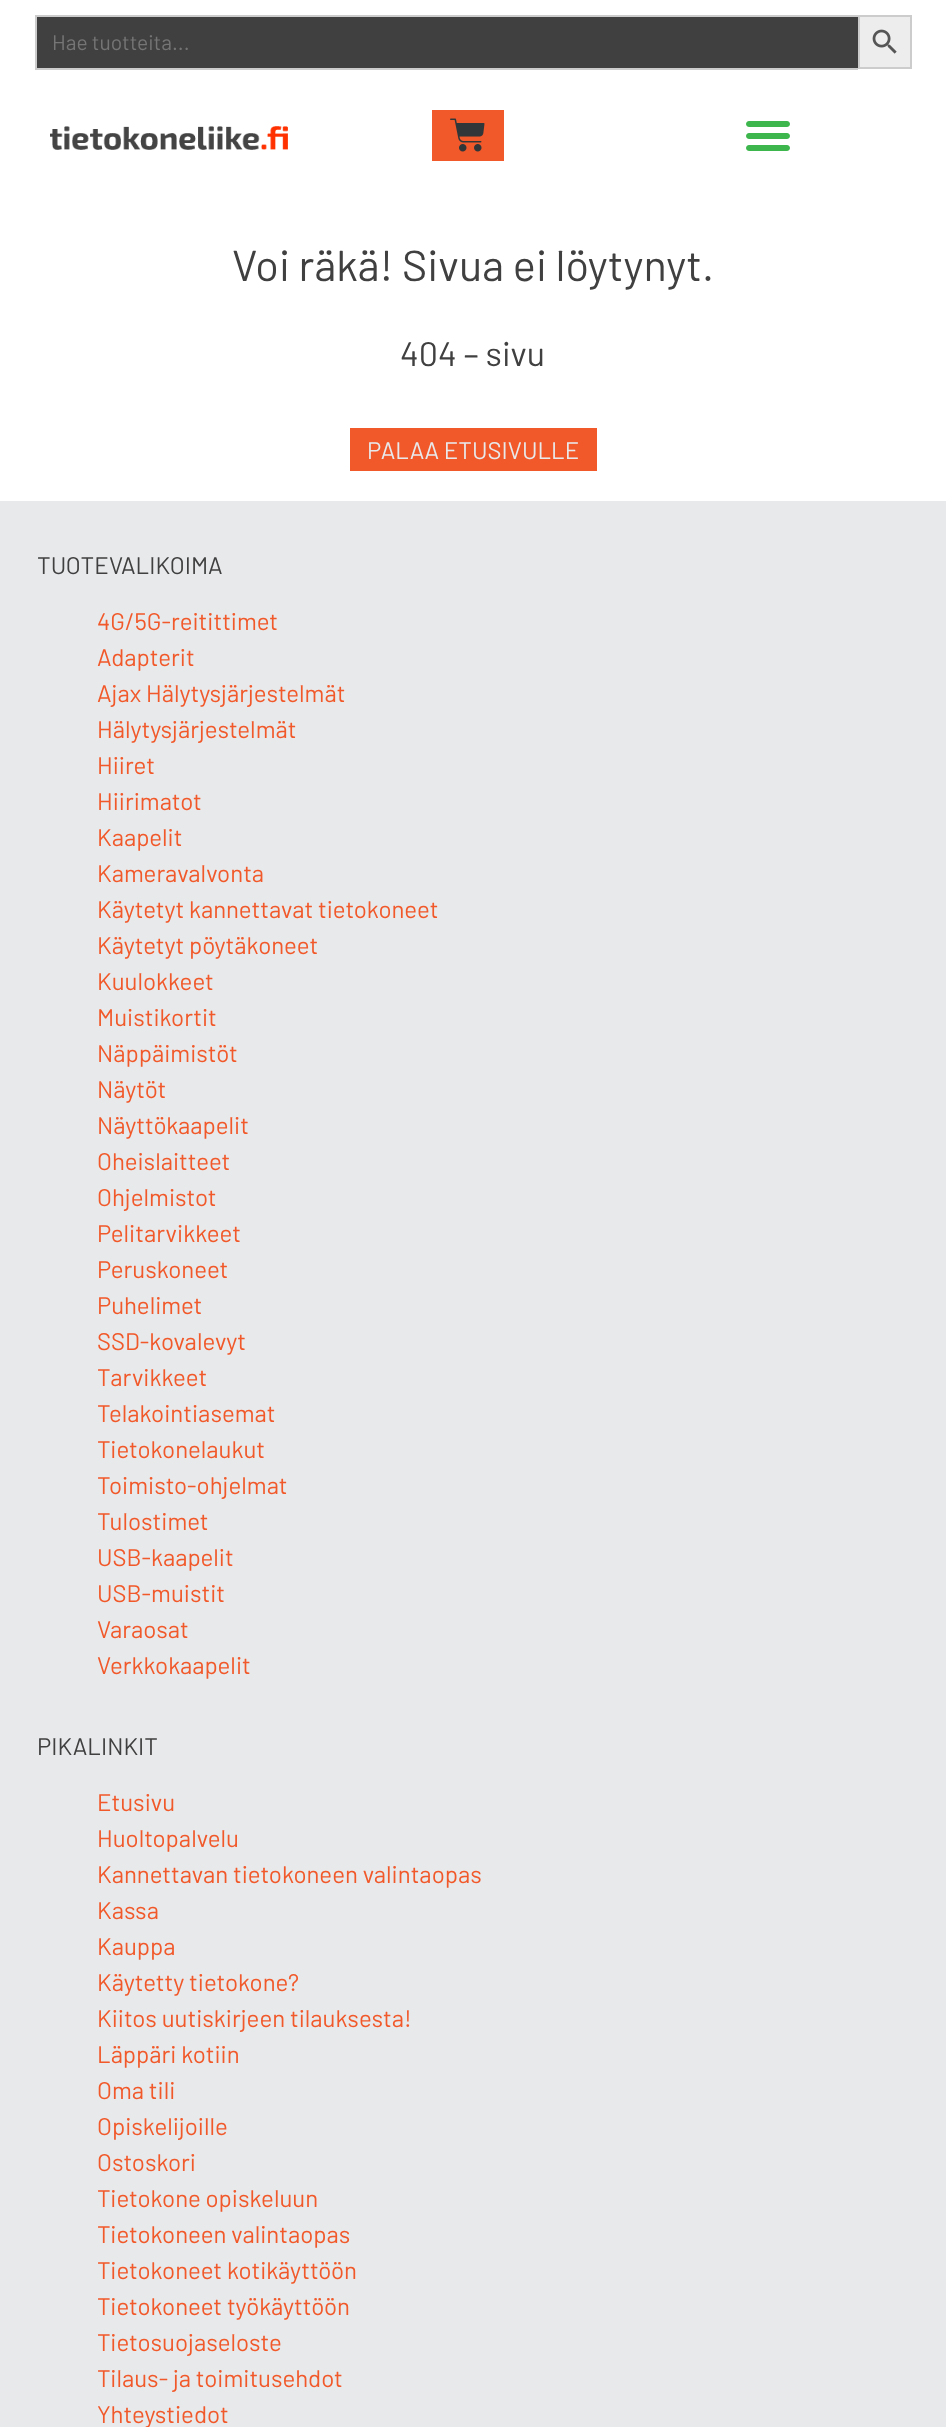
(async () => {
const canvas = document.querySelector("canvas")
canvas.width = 946
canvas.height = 2427
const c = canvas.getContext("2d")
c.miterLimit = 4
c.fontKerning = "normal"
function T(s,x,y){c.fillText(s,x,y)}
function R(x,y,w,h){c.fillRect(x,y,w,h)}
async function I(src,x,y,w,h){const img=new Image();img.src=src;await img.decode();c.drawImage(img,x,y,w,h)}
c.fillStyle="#fff"
R(0,0,946,2427)
c.fillStyle="#404040"
R(37,17,821,51)
c.fillStyle="#ccc"
R(35,15,823,2)
R(35,68,823,2)
R(35,15,2,54)
c.font="21px Barlow"
c.fillStyle="#757575"
T("Hae tuotteita...",52,50)
c.fillStyle="#ededed"
c.beginPath()
c.rect(859,16,52,52)
c.fill()
c.strokeStyle="#ccc"
c.lineWidth=2
c.stroke()
await I("1.png",872,29,25,25)
await I("2.png",50,126,238,24)
c.fillStyle="#f1592a"
R(432,110,72,51)
await I("3.png",450,118,35,34)
await I("4.png",746,121,44,30)
c.font="43.25px Barlow"
c.fillStyle="#404040"
T("Voi räkä! Sivua ei löytynyt.",232,281)
c.font="34px Barlow"
T("404 – sivu",400,366)
c.fillStyle="#f1592a"
R(350,428,247,43)
c.font="24px Barlow"
c.fillStyle="#e8e9eb"
T("PALAA ETUSIVULLE",367,459)
R(0,501,946,1926)
c.fillStyle="#404040"
T("TUOTEVALIKOIMA",37,574)
c.fillStyle="#f1592a"
T("4G/5G-reitittimet",97,630)
T("Adapterit",97,666)
T("Ajax Hälytysjärjestelmät",97,702)
T("Hälytysjärjestelmät",97,738)
T("Hiiret",97,774)
T("Hiirimatot",97,810)
T("Kaapelit",97,846)
T("Kameravalvonta",97,882)
T("Käytetyt kannettavat tietokoneet",97,918)
T("Käytetyt pöytäkoneet",97,954)
T("Kuulokkeet",97,990)
T("Muistikortit",97,1026)
T("Näppäimistöt",97,1062)
T("Näytöt",97,1098)
T("Näyttökaapelit",97,1134)
T("Oheislaitteet",97,1170)
T("Ohjelmistot",97,1206)
T("Pelitarvikkeet",97,1242)
T("Peruskoneet",97,1278)
T("Puhelimet",97,1314)
T("SSD-kovalevyt",97,1350)
T("Tarvikkeet",97,1386)
T("Telakointiasemat",97,1422)
T("Tietokonelaukut",97,1458)
T("Toimisto-ohjelmat",97,1494)
T("Tulostimet",97,1530)
T("USB-kaapelit",97,1566)
T("USB-muistit",97,1602)
T("Varaosat",97,1638)
T("Verkkokaapelit",97,1674)
c.fillStyle="#404040"
T("PIKALINKIT",37,1755)
c.fillStyle="#f1592a"
T("Etusivu",97,1811)
T("Huoltopalvelu",97,1847)
T("Kannettavan tietokoneen valintaopas",97,1883)
T("Kassa",97,1919)
T("Kauppa",97,1955)
T("Käytetty tietokone?",97,1991)
T("Kiitos uutiskirjeen tilauksesta!",97,2027)
T("Läppäri kotiin",97,2063)
T("Oma tili",97,2099)
T("Opiskelijoille",97,2135)
T("Ostoskori",97,2171)
T("Tietokone opiskeluun",97,2207)
T("Tietokoneen valintaopas",97,2243)
T("Tietokoneet kotikäyttöön",97,2279)
T("Tietokoneet työkäyttöön",97,2315)
T("Tietosuojaseloste",97,2351)
T("Tilaus- ja toimitusehdot",97,2387)
T("Yhteystiedot",97,2423)
})()
